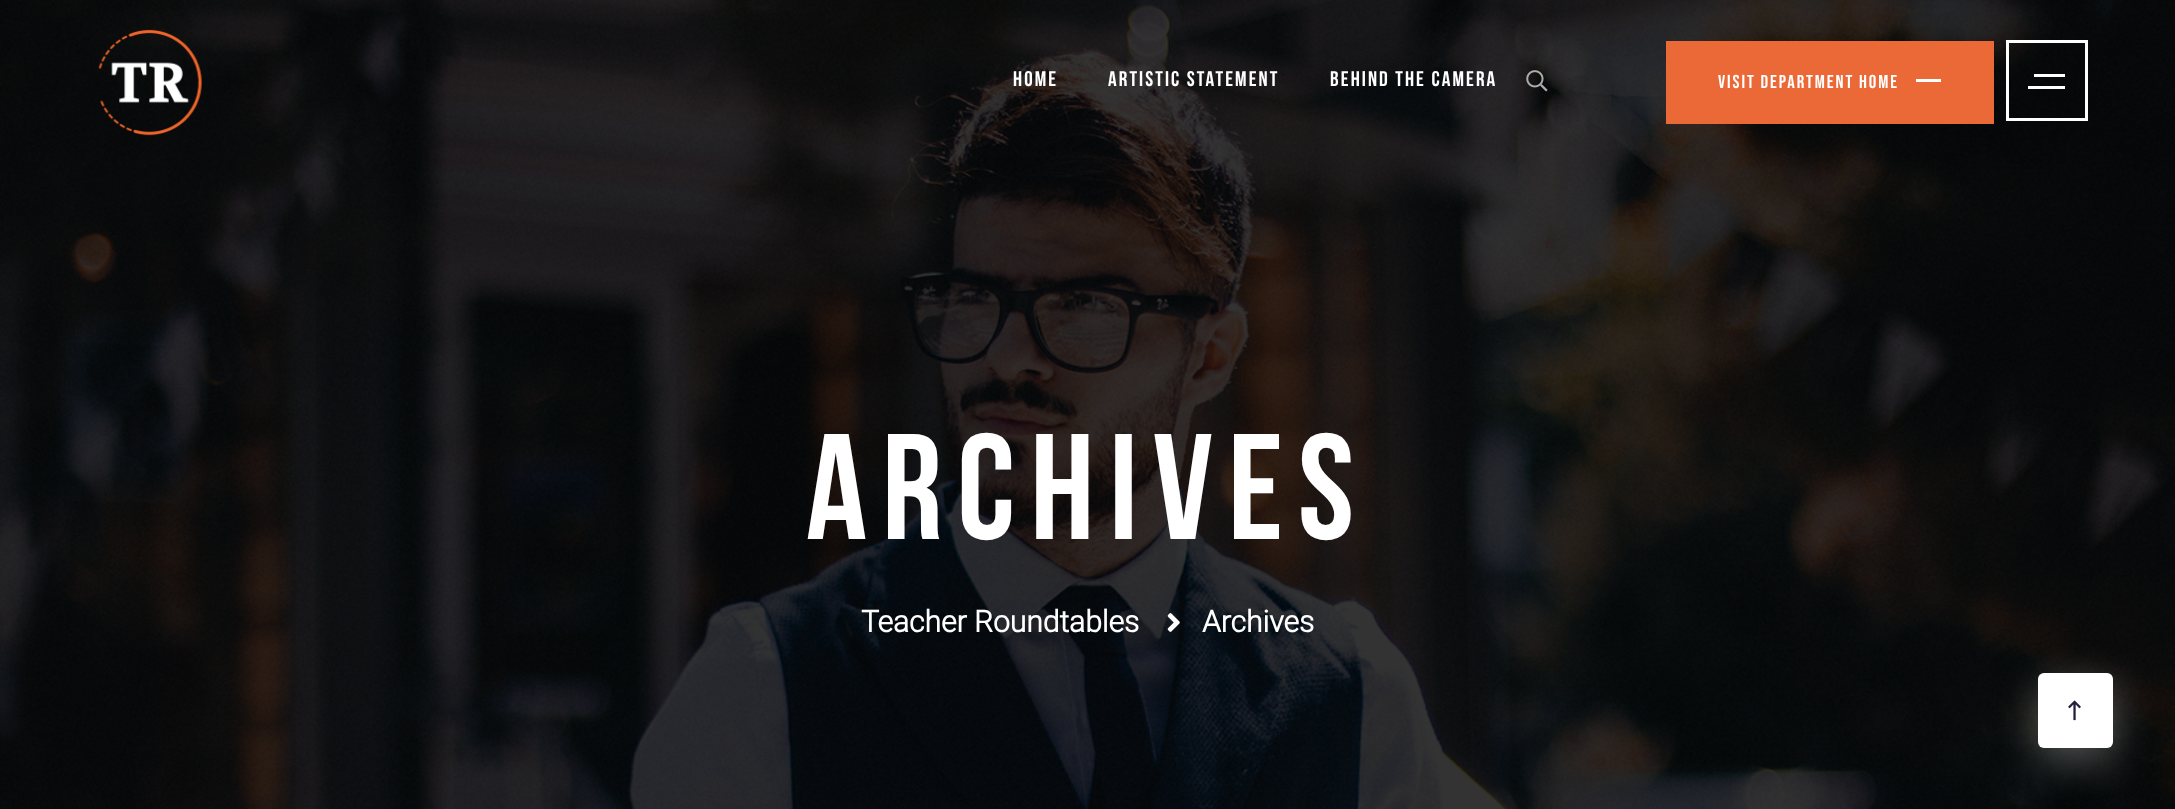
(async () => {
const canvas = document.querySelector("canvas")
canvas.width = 2175
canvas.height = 809
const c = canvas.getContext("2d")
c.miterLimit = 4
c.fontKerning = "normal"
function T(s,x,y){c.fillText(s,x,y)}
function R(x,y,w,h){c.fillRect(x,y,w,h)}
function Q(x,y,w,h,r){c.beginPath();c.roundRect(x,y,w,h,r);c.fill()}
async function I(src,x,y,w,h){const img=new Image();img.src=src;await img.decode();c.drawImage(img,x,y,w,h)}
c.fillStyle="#fff"
R(0,0,2175,809)
await I("3.png",0,0,2175,809)
await I("1.png",98,29,104,107)
c.letterSpacing="2.1px"
c.font="bold 21.25px Bebas Neue"
T("Home",1013,86)
T("Artistic Statement",1108,86)
T("Behind the Camera",1330,86)
await I("2.png",1526,70,22,22)
c.fillStyle="#ea6937"
R(1666,41,328,83)
c.letterSpacing="1.9px"
c.font="18.75px Bebas Neue"
c.fillStyle="#fff"
T("Visit Department Home",1718,88)
R(1916,79,25,3)
c.strokeStyle="#fff"
c.lineWidth=3
c.strokeRect(2007.5,41.5,79,78)
R(2034,74,31,3)
R(2028,86,37,3)
c.letterSpacing="15px"
c.font="bold 150px Bebas Neue"
T("Archives",806,539)
c.letterSpacing="0px"
c.font="bold 30px Roboto"
T("Teacher Roundtables",861,632)
await I("4.png",1167,613,13,19)
T("Archives",1202,632)
c.fillStyle="#c5c5c566"
c.filter="blur(20px)"
c.beginPath()
c.roundRect(2038,685,75,75,6)
c.fill()
c.filter="none"
c.fillStyle="#fff"
Q(2038,673,75,75,6)
await I("5.png",2068,700,13,21)
})()
